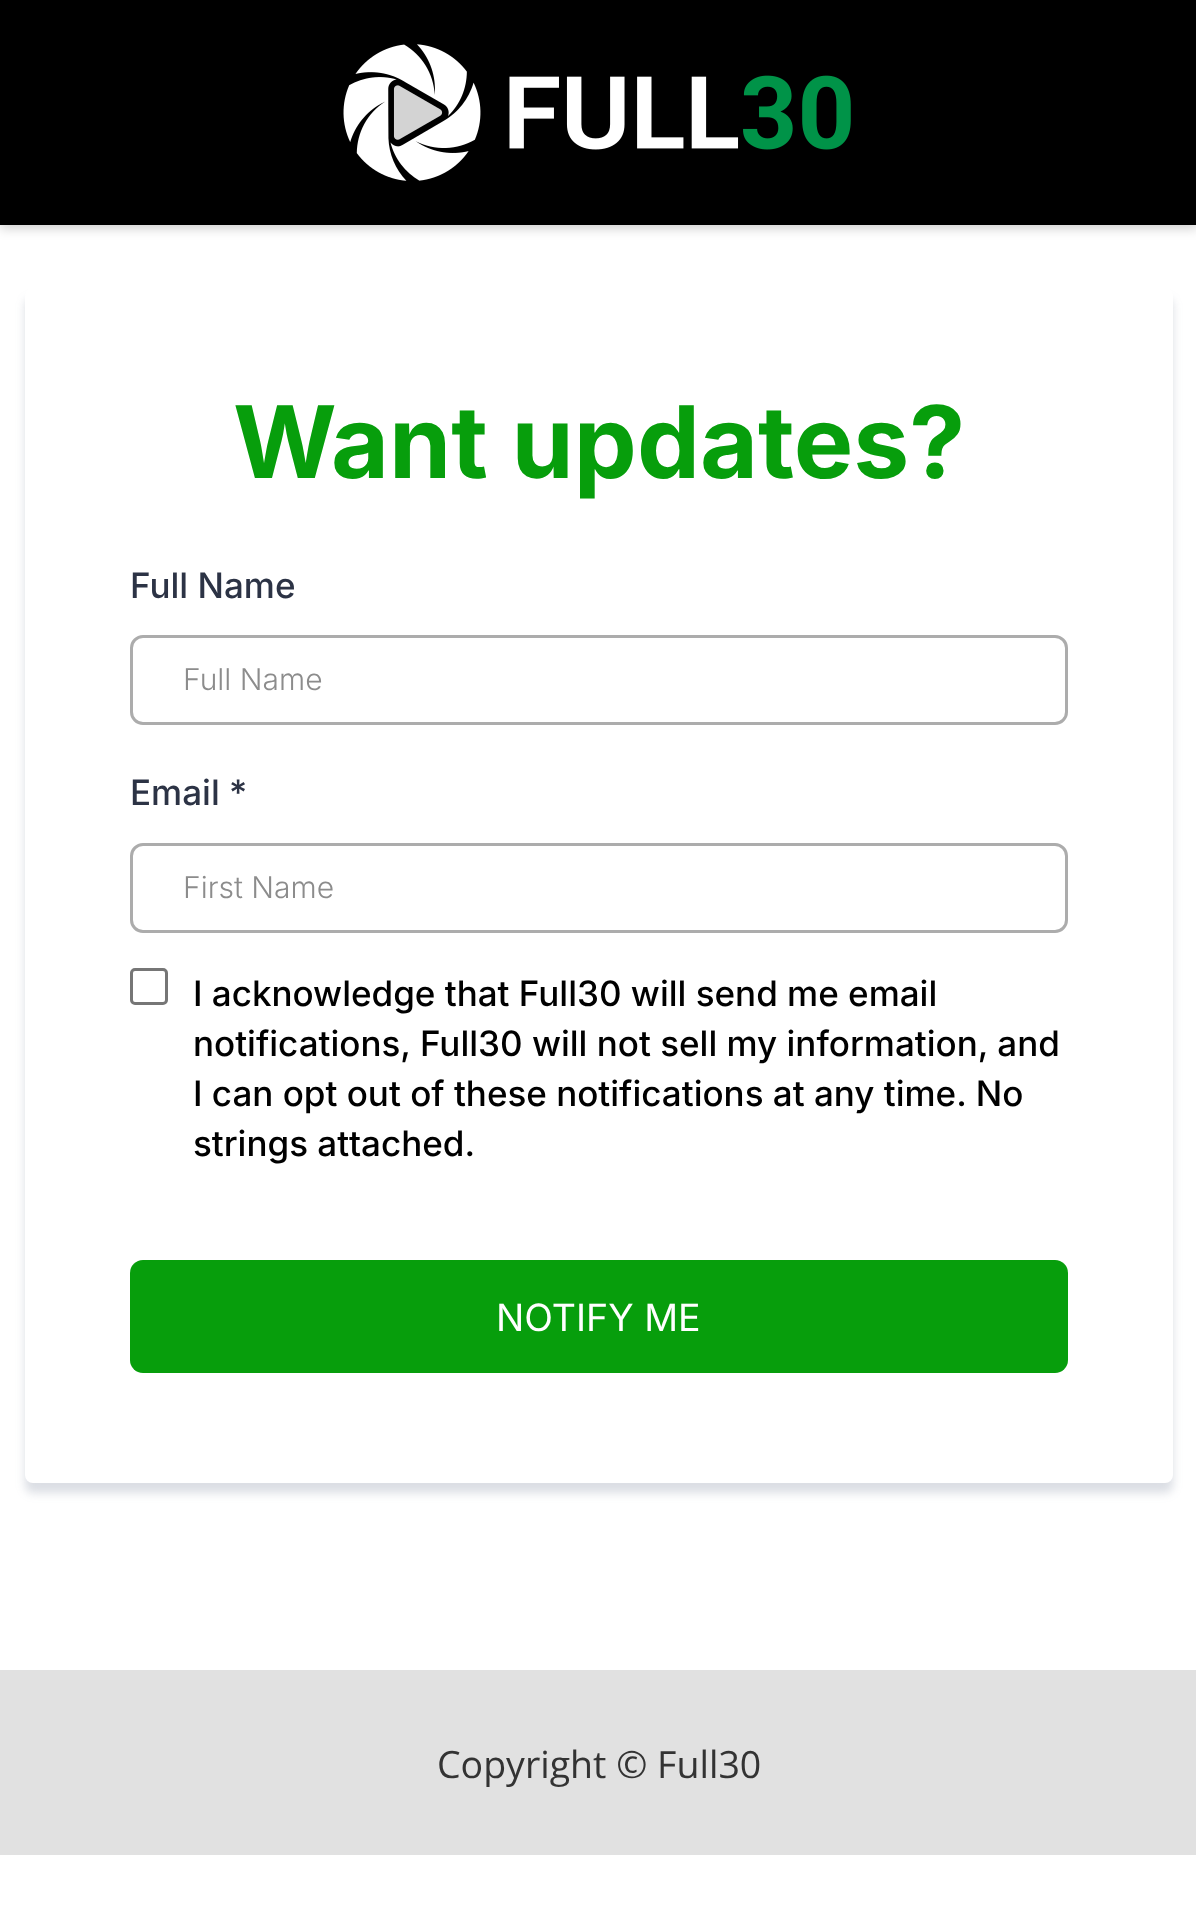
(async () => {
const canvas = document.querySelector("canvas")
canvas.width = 1196
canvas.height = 1917
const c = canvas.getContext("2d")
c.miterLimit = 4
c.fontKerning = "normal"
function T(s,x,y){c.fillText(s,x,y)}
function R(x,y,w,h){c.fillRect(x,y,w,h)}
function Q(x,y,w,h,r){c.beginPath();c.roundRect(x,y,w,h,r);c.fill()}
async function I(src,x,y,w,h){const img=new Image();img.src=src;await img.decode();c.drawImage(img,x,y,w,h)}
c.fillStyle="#fff"
R(0,0,1196,1917)
c.fillStyle="#00000033"
c.filter="blur(6px)"
c.beginPath()
c.rect(0,3,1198,225)
c.fill()
c.filter="none"
c.fillStyle="#000"
R(0,0,1196,225)
await I("1.png",343,44,508,137)
c.fillStyle="#57647e36"
c.filter="blur(5px)"
c.beginPath()
c.roundRect(25,298,1148,1195,8)
c.fill()
c.filter="none"
c.fillStyle="#fff"
c.beginPath()
c.roundRect(26.5,289.5,1145,1192,6.5)
c.fill()
c.strokeStyle="#fff"
c.lineWidth=3
c.stroke()
c.font="bold 100px Inter"
c.fillStyle="#079e0c"
T("Want updates?",233,478)
c.font="500 35px Inter"
c.fillStyle="#2c3345"
T("Full Name",130,598)
c.beginPath()
c.roundRect(131.5,636.5,935,87,11.5)
c.strokeStyle="#acacac"
c.stroke()
c.font="300 30px Inter"
c.fillStyle="#8c8c8c"
T("Full Name",183,690)
c.font="500 35px Inter"
c.fillStyle="#2c3345"
T("Email *",130,805)
c.beginPath()
c.roundRect(131.5,844.5,935,87,11.5)
c.stroke()
c.font="300 30px Inter"
c.fillStyle="#8c8c8c"
T("First Name",183,898)
c.beginPath()
c.roundRect(131.5,969.5,35,34,3.5)
c.strokeStyle="#767676"
c.stroke()
c.font="500 35px Inter"
c.fillStyle="#000"
T("I acknowledge that Full30 will send me email",193,1006)
T("notifications, Full30 will not sell my information, and",193,1056)
T("I can opt out of these notifications at any time. No",193,1106)
T("strings attached.",193,1156)
c.fillStyle="#079e0c"
Q(130,1260,938,113,13)
c.font="37.5px Inter"
c.fillStyle="#fff"
T("NOTIFY ME",496,1331)
c.fillStyle="#e1e1e1"
R(0,1670,1196,185)
c.font="37.5px Open Sans"
c.fillStyle="#333"
T("Copyright © Full30",437,1778)
})()
